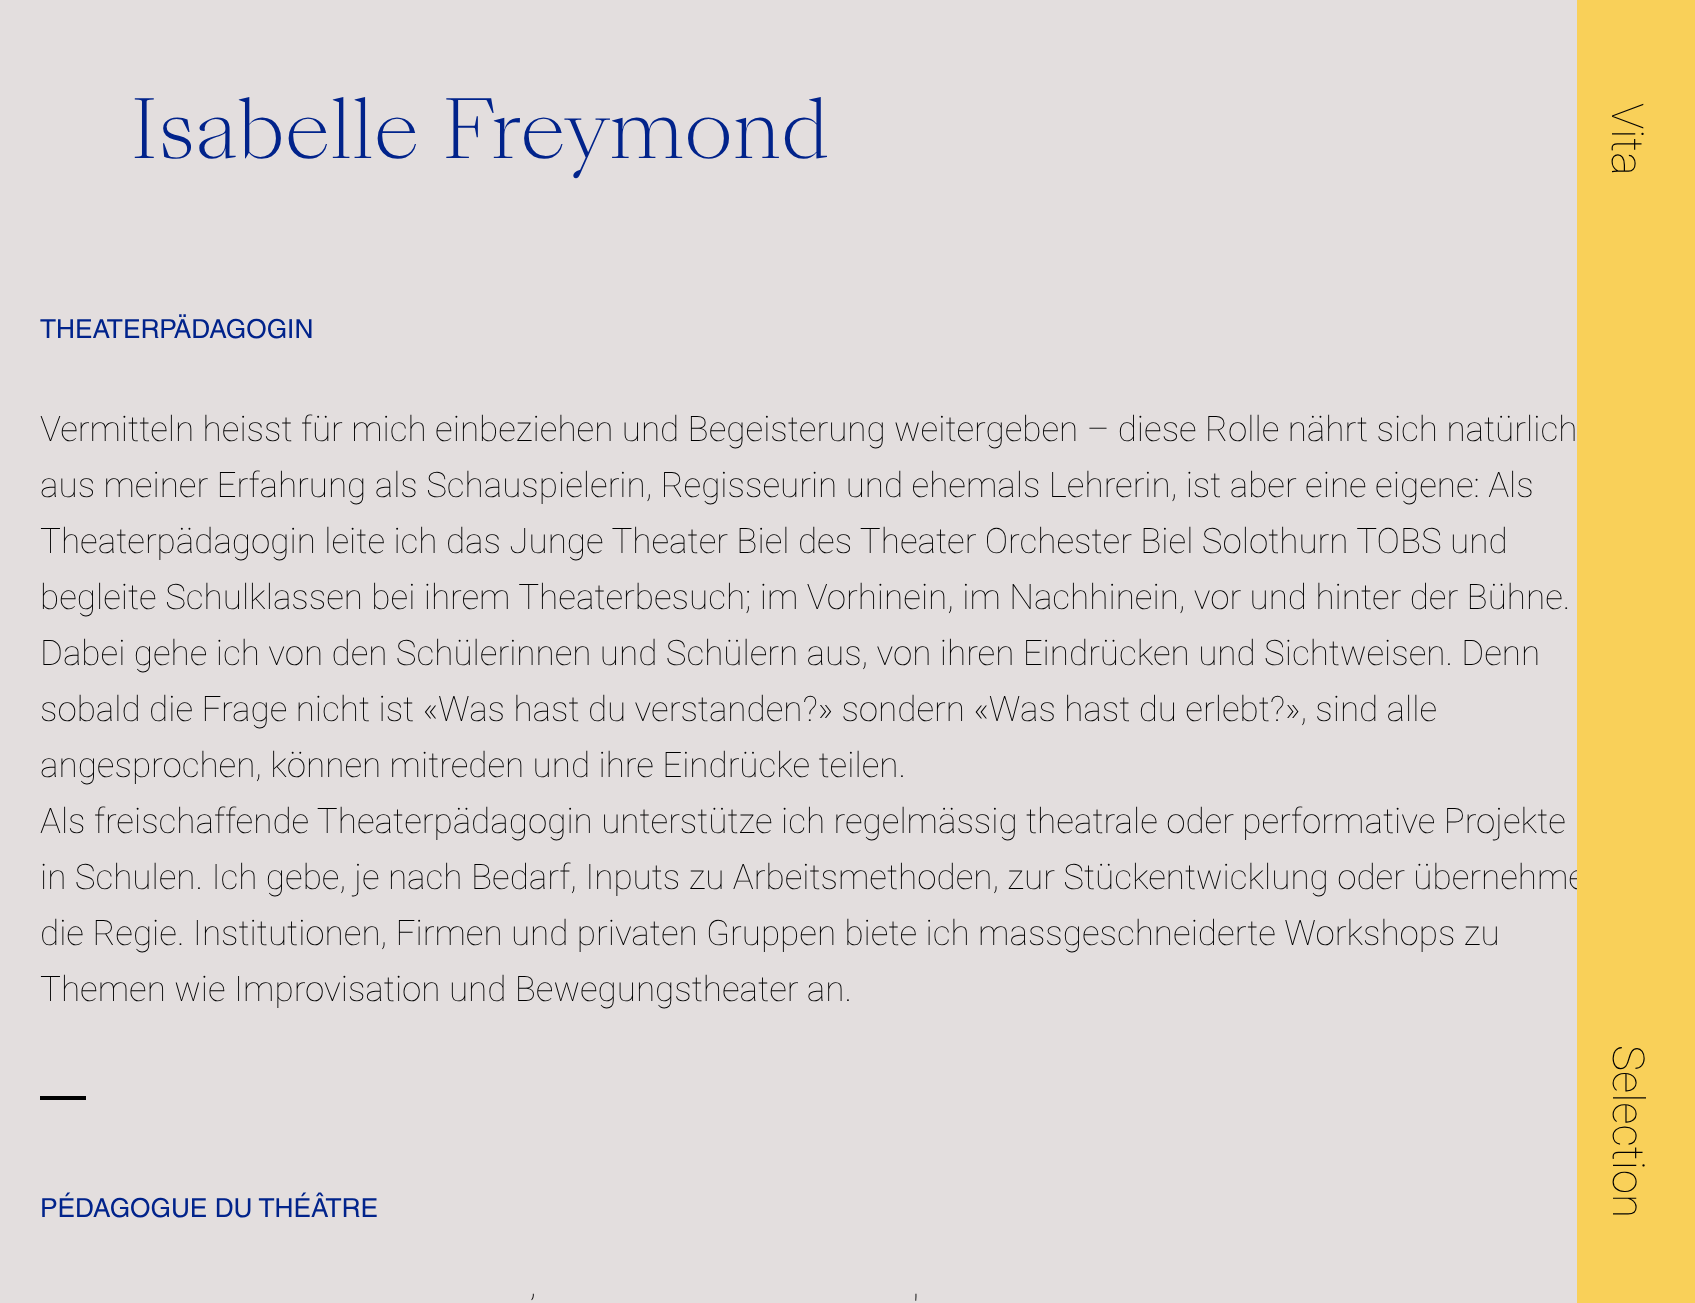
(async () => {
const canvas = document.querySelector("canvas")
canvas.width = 1695
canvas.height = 1303
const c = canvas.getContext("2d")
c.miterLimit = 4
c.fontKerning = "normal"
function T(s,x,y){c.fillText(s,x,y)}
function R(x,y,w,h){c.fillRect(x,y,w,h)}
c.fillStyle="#e3dede"
R(0,0,1695,1303)
c.font="300 78.75px 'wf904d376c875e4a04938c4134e'"
c.fillStyle="#01238b"
T("Isabelle Freymond",130,158)
c.font="100 35px Roboto"
c.fillStyle="#000"
T("in Schulen. Ich gebe, je nach Bedarf, Inputs zu Arbeitsmethoden, zur Stückentwicklung oder übernehme",40,889)
c.fillStyle="#f9d059"
R(1577,0,118,1303)
c.font="100 44px Roboto"
c.fillStyle="#000"
c.save()
c.translate(1612,103)
c.rotate(90 * Math.PI / 180)
c.fillText("Vita",0,0)
c.restore()
c.font="26.25px helvetica"
c.fillStyle="#01238b"
T("THEATERPÄDAGOGIN",40,338)
c.font="100 35px Roboto"
c.fillStyle="#000"
T("Vermitteln heisst für mich einbeziehen und Begeisterung weitergeben – diese Rolle nährt sich natürlich",40,441)
T("aus meiner Erfahrung als Schauspielerin, Regisseurin und ehemals Lehrerin, ist aber eine eigene: Als",40,497)
T("Theaterpädagogin leite ich das Junge Theater Biel des Theater Orchester Biel Solothurn TOBS und",40,553)
T("begleite Schulklassen bei ihrem Theaterbesuch; im Vorhinein, im Nachhinein, vor und hinter der Bühne.",40,609)
T("Dabei gehe ich von den Schülerinnen und Schülern aus, von ihren Eindrücken und Sichtweisen. Denn",40,665)
T("sobald die Frage nicht ist «Was hast du verstanden?» sondern «Was hast du erlebt?», sind alle",40,721)
T("angesprochen, können mitreden und ihre Eindrücke teilen.",40,777)
T("Als freischaffende Theaterpädagogin unterstütze ich regelmässig theatrale oder performative Projekte",40,833)
T("die Regie. Institutionen, Firmen und privaten Gruppen biete ich massgeschneiderte Workshops zu",40,945)
T("Themen wie Improvisation und Bewegungstheater an.",40,1001)
R(40,1096,46,4)
c.font="26.25px helvetica"
c.fillStyle="#01238b"
T("PÉDAGOGUE DU THÉÂTRE",40,1217)
c.font="100 35px Roboto"
c.fillStyle="#000"
T("’",530,1320)
T("'",913,1320)
c.font="100 44px Roboto"
c.save()
c.translate(1613,1045)
c.rotate(90 * Math.PI / 180)
c.fillText("Selection",0,0)
c.restore()
})()
